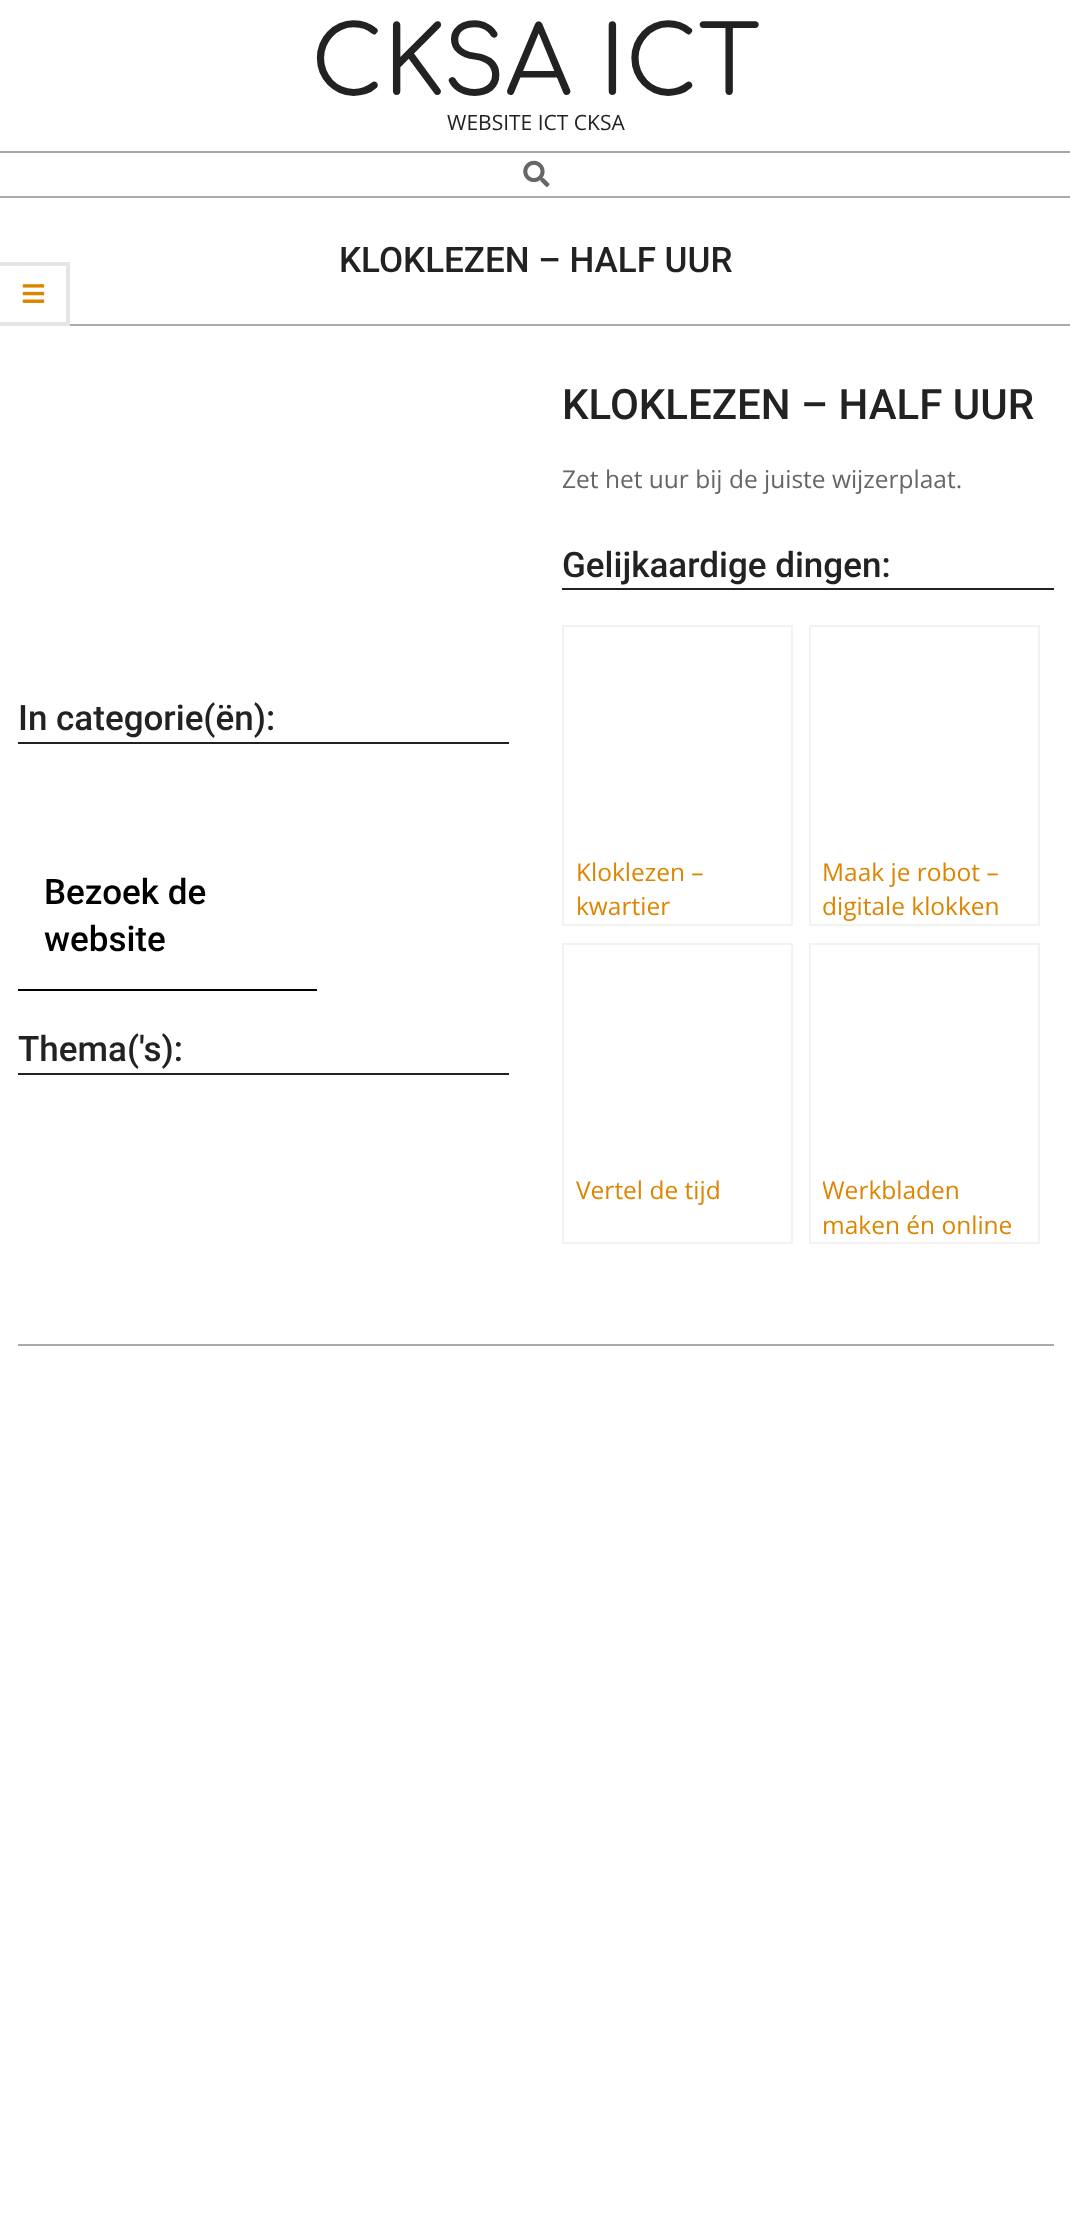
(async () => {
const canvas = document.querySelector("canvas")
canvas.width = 1070
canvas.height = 2216
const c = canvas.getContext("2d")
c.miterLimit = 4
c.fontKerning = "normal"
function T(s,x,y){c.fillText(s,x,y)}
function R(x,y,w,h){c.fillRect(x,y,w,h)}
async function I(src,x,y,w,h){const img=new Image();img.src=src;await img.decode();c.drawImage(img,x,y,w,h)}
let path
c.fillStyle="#fff"
R(0,0,1070,2216)
c.fillStyle="#aaa"
R(0,196,1070,2)
c.font="94.5px Comfortaa"
c.fillStyle="#222"
T("CKSA ICT",311,95)
c.font="21px Open Sans"
T("WEBSITE ICT CKSA",447,130)
c.fillStyle="#aaa"
R(0,151,1070,2)
await I("1.png",523,160,27,27)
c.fillStyle="#e6e6e6"
path = new Path2D("M0 262h70l-4 4h-66z")
c.fill(path)
c.fillStyle="#0000001a"
path = new Path2D("M70 262v64l-4-4v-56z")
c.fill(path)
path = new Path2D("M70 326h-70v-4h66z")
c.fill(path)
await I("2.png",22,284,23,19)
c.fillStyle="#aaa"
R(70,324,1000,2)
c.font="500 35px Roboto"
c.fillStyle="#222"
T("KLOKLEZEN – HALF UUR",339,272)
c.fillStyle="#aaa"
R(18,1344,1036,2)
c.fillStyle="#222"
R(18,742,491,2)
T("In categorie(ën):",18,730)
c.fillStyle="#000"
R(18,989,299,2)
T("Bezoek de",44,904)
T("website",44,951)
c.fillStyle="#222"
R(18,1073,491,2)
T("Thema('s):",18,1061)
c.font="500 42px Roboto"
T("KLOKLEZEN – HALF UUR",562,419)
c.font="24.5px Open Sans"
c.fillStyle="#666"
T("Zet het uur bij de juiste wijzerplaat.",562,488)
c.fillStyle="#222"
R(562,588,492,2)
c.font="500 35px Roboto"
T("Gelijkaardige dingen:",562,577)
c.strokeStyle="#f2f2f2"
c.lineWidth=2
c.strokeRect(563,626,229,299)
c.font="24.5px Open Sans"
c.fillStyle="#dd8500"
T("Kloklezen –",576,881)
T("kwartier",576,915)
c.strokeRect(810,626,229,299)
T("Maak je robot –",822,881)
T("digitale klokken",822,915)
c.strokeRect(563,944,229,299)
T("Vertel de tijd",576,1199)
c.strokeRect(810,944,229,299)
c.save()
c.beginPath()
c.rect(823,1173,210,70)
c.clip()
T("Werkbladen",822,1199)
c.restore()
T("maken én online",822,1234)
})()
